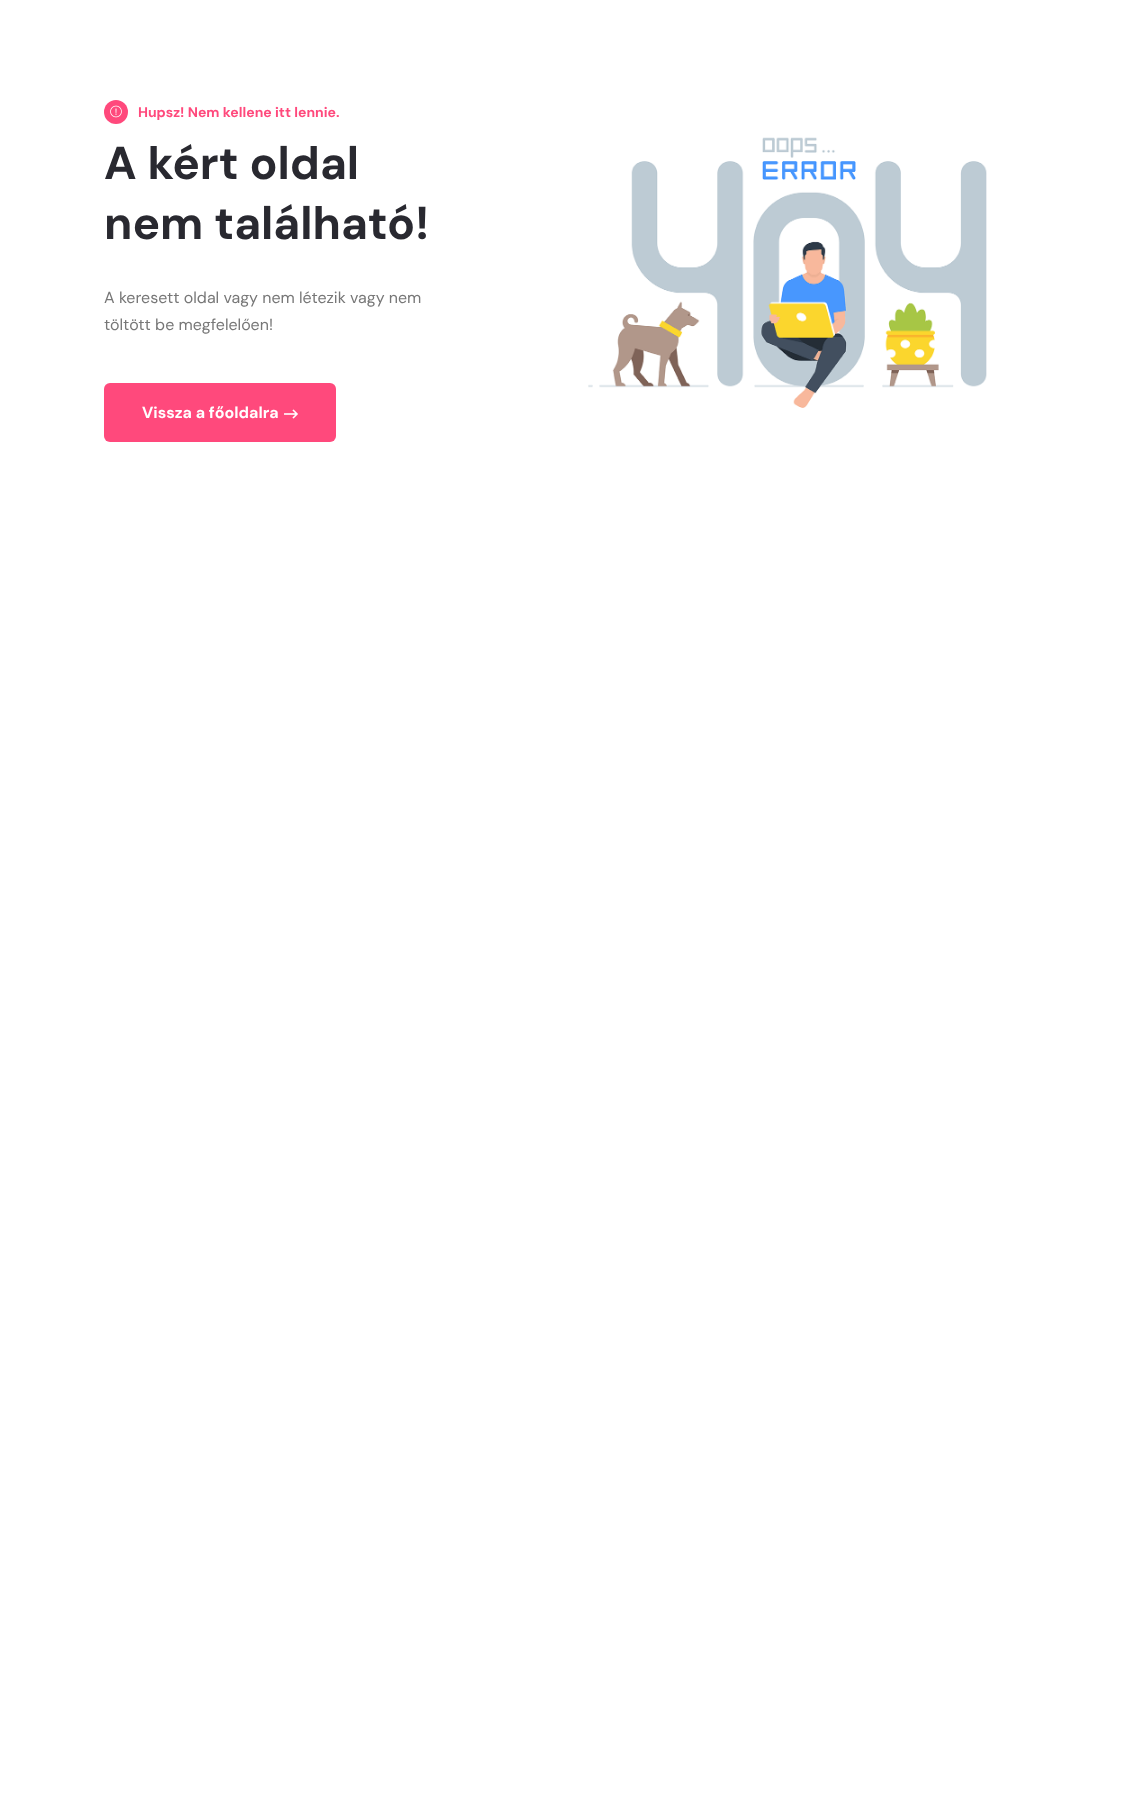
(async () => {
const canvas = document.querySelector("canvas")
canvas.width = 1138
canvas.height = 1813
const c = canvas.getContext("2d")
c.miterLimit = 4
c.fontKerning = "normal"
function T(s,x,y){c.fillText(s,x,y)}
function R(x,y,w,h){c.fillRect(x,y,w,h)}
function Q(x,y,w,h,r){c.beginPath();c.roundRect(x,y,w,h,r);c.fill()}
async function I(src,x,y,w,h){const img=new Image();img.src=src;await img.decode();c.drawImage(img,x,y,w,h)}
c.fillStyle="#fff"
R(0,0,1138,1813)
c.fillStyle="#ff497c"
c.beginPath()
c.arc(116,112,12,0,7)
c.fill()
await I("1.png",110,105,12,13)
c.font="bold 14px DM Sans"
T("Hupsz! Nem kellene itt lennie.",138,117)
c.font="bold 46px DM Sans"
c.fillStyle="#292930"
T("A kért oldal",104,179)
T("nem található!",104,239)
c.font="16px DM Sans"
c.fillStyle="#777"
T("A keresett oldal vagy nem létezik vagy nem",104,303)
T("töltött be megfelelően!",104,330)
c.fillStyle="#ff497c"
Q(104,383,232,59,6)
c.font="bold 16px DM Sans"
c.fillStyle="#fff"
T("Vissza a főoldalra",142,418)
await I("2.png",284,409,14,10)
await I("3.png",588,137,399,271)
})()
